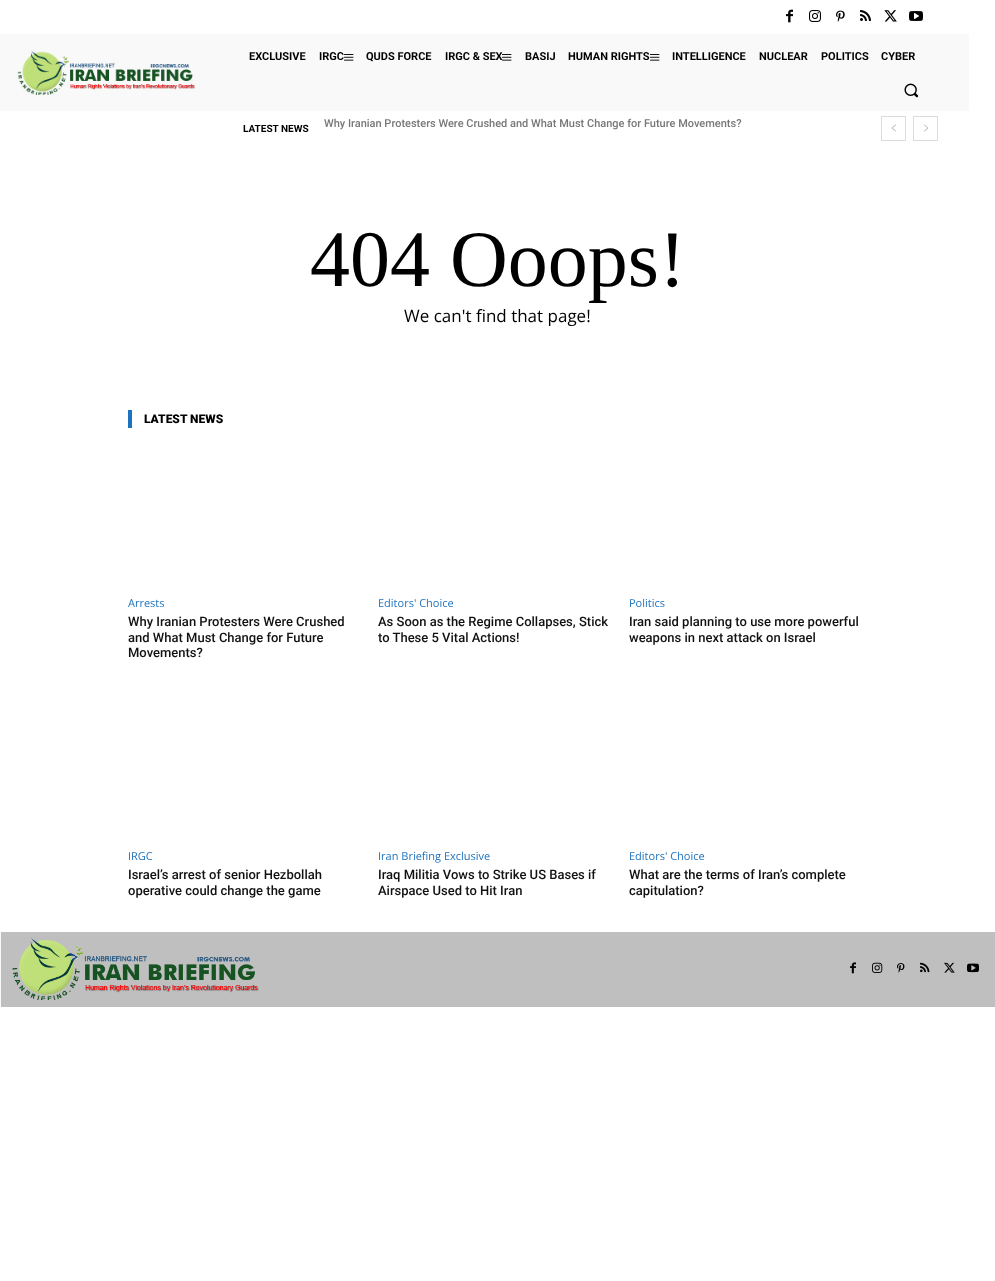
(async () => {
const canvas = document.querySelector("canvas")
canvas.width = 995
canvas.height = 1281
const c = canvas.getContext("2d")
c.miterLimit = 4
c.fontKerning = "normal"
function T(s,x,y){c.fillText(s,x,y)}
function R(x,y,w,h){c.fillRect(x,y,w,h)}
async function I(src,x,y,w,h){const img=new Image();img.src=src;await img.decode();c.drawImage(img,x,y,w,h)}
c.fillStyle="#fff"
R(0,0,995,1281)
await I("1.png",786,9,7,14)
await I("2.png",809,10,12,12)
await I("3.png",836,10,9,12)
await I("4.png",860,10,11,11)
await I("5.png",884,10,13,12)
await I("6.png",909,11,14,10)
c.fillStyle="#f9f9f9"
R(0,34,969,77)
await I("7.png",17,50,178,45)
c.font="bold 11px Roboto"
c.fillStyle="#000"
T("EXCLUSIVE",249,60)
T("IRGC",319,60)
await I("8.png",344,54,10,7)
T("QUDS FORCE",366,60)
T("IRGC & SEX",445,60)
await I("9.png",502,54,10,7)
T("BASIJ",525,60)
T("HUMAN RIGHTS",568,60)
await I("8.png",650,54,10,7)
T("INTELLIGENCE",672,60)
T("NUCLEAR",759,60)
T("POLITICS",821,60)
T("CYBER",881,60)
await I("10.png",904,83,15,15)
c.font="bold 10px Roboto"
T("LATEST NEWS",243,132)
c.font="500 11px Roboto"
c.fillStyle="#777"
T("Why Iranian Protesters Were Crushed and What Must Change for Future Movements?",324,127)
c.strokeStyle="#dcdcdc"
c.strokeRect(881.5,116.5,24,24)
await I("11.png",891,124,5,8)
c.strokeRect(913.5,116.5,24,24)
await I("12.png",924,124,5,8)
c.font="80px Liberation Serif"
c.fillStyle="#000"
T("404 Ooops!",310,286)
c.font="17px Open Sans"
T("We can't find that page!",404,322)
c.fillStyle="#1e73be"
R(128,410,4,18)
c.font="900 12px Roboto"
c.fillStyle="#000"
T("LATEST NEWS",144,423)
c.font="11px Open Sans"
c.fillStyle="#1e73be"
T("Arrests",128,607)
c.font="500 13px Roboto"
c.fillStyle="#111"
T("Why Iranian Protesters Were Crushed",128,626)
T("and What Must Change for Future",128,642)
T("Movements?",128,657)
c.font="11px Open Sans"
c.fillStyle="#1e73be"
T("Editors' Choice",378,607)
c.font="500 13px Roboto"
c.fillStyle="#111"
T("As Soon as the Regime Collapses, Stick",378,626)
T("to These 5 Vital Actions!",378,642)
c.font="11px Open Sans"
c.fillStyle="#1e73be"
T("Politics",629,607)
c.font="500 13px Roboto"
c.fillStyle="#111"
T("Iran said planning to use more powerful",629,626)
T("weapons in next attack on Israel",629,642)
c.font="11px Open Sans"
c.fillStyle="#1e73be"
T("IRGC",128,860)
c.font="500 13px Roboto"
c.fillStyle="#111"
T("Israel’s arrest of senior Hezbollah",128,879)
T("operative could change the game",128,895)
c.font="11px Open Sans"
c.fillStyle="#1e73be"
T("Iran Briefing Exclusive",378,860)
c.font="500 13px Roboto"
c.fillStyle="#111"
T("Iraq Militia Vows to Strike US Bases if",378,879)
T("Airspace Used to Hit Iran",378,895)
c.font="11px Open Sans"
c.fillStyle="#1e73be"
T("Editors' Choice",629,860)
c.font="500 13px Roboto"
c.fillStyle="#111"
T("What are the terms of Iran’s complete",629,879)
T("capitulation?",629,895)
c.fillStyle="#f9f9f9"
R(0,932,1,75)
c.fillStyle="#bfbfbf"
R(1,932,994,75)
await I("13.png",12,938,247,62)
await I("14.png",850,962,6,12)
await I("15.png",872,962,11,11)
await I("16.png",897,963,8,10)
await I("17.png",920,962,10,11)
await I("18.png",944,962,11,11)
await I("19.png",967,963,12,10)
})()
